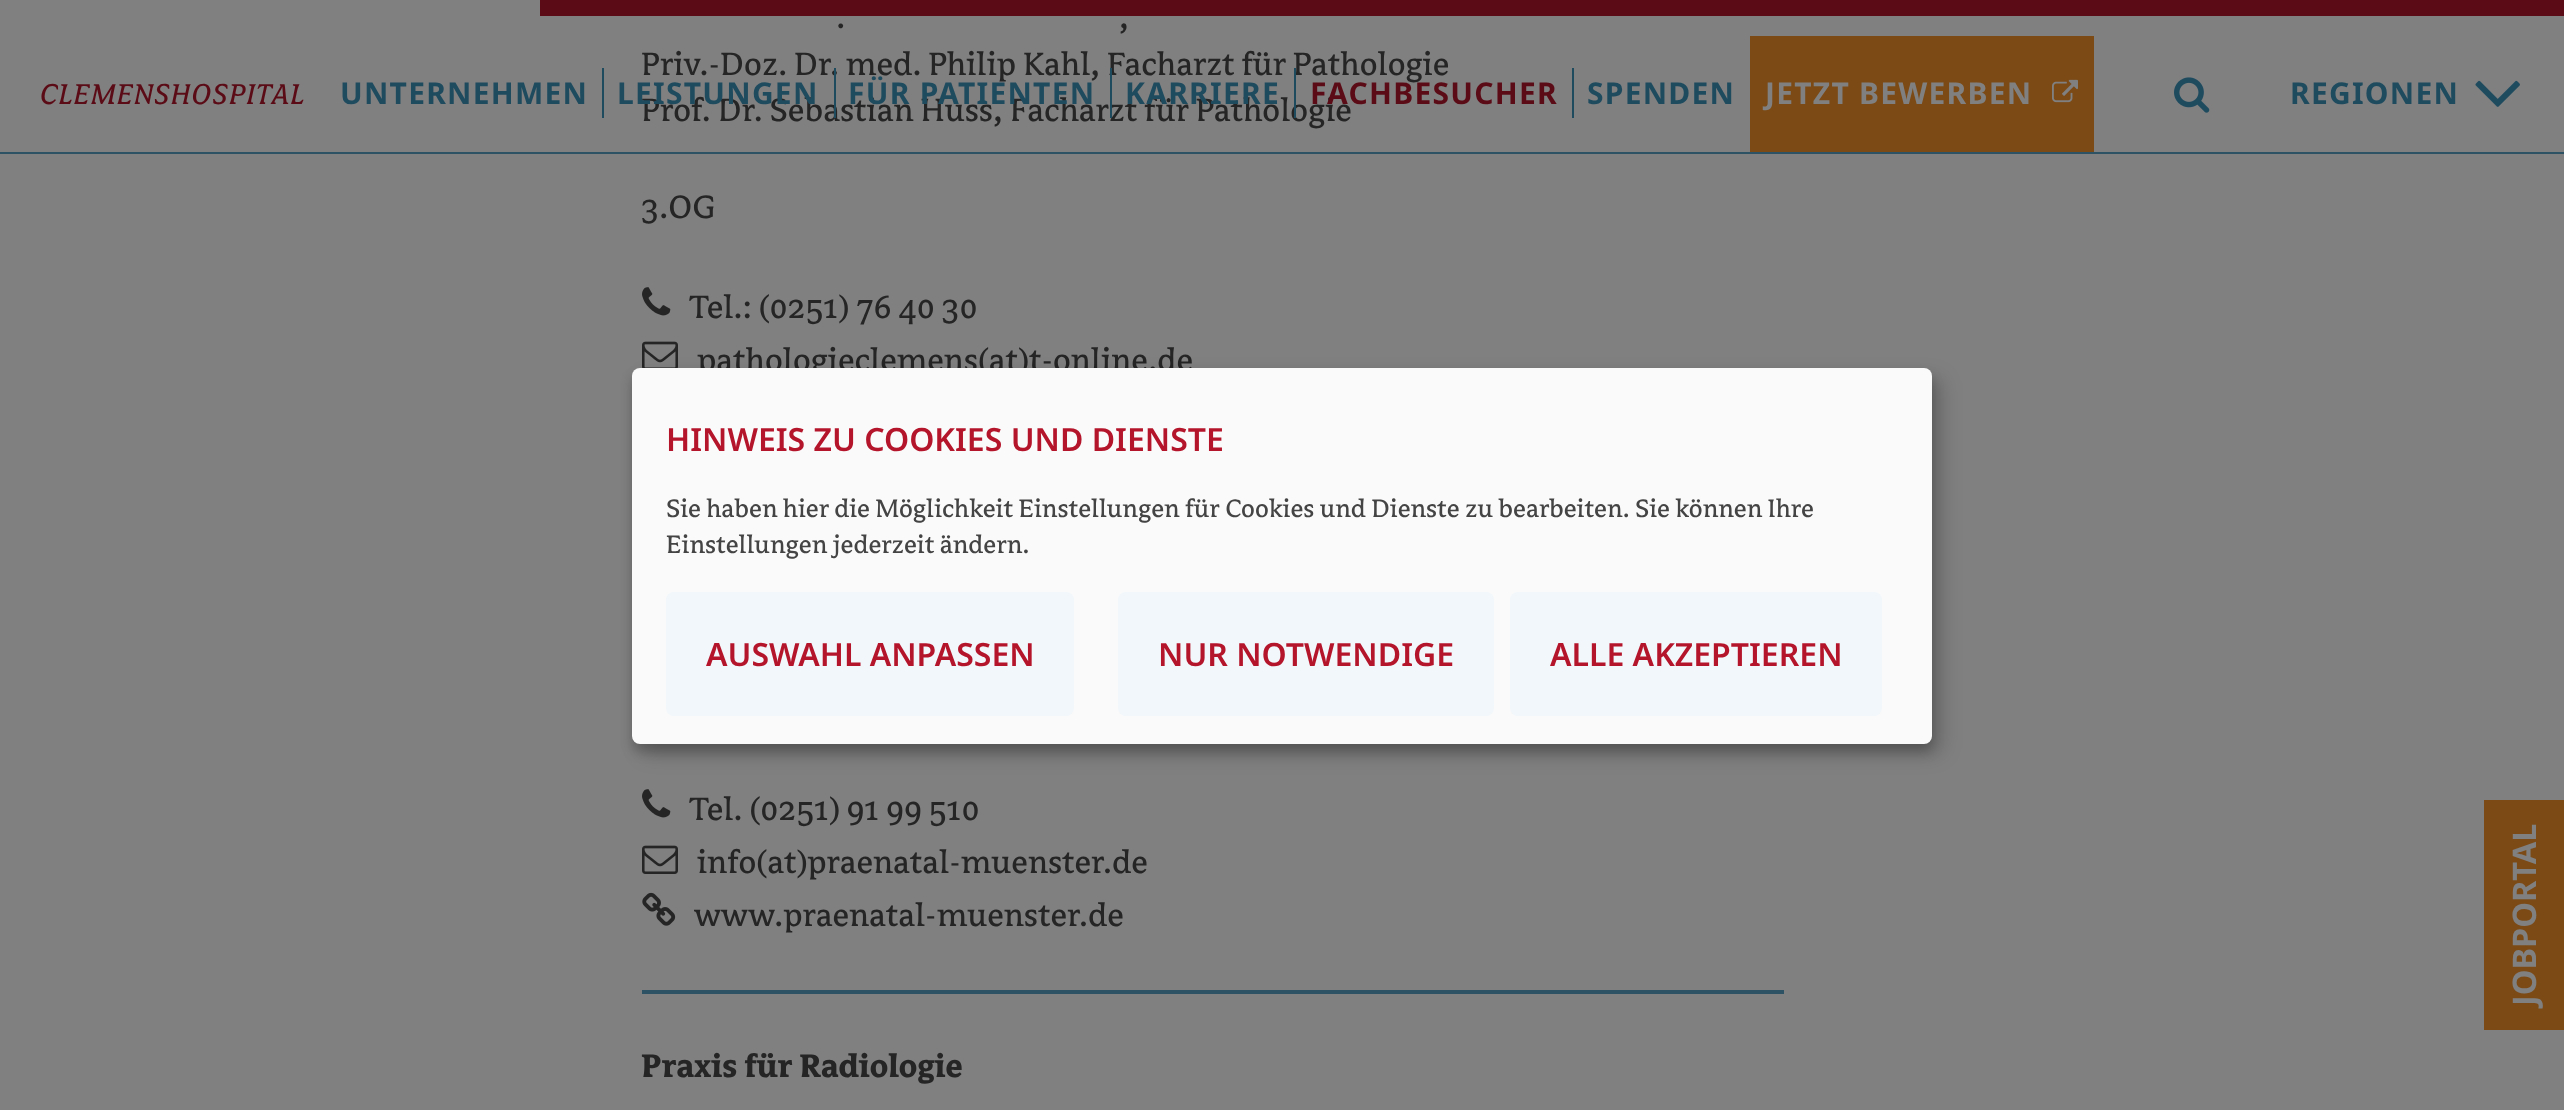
(async () => {
const canvas = document.querySelector("canvas")
canvas.width = 2564
canvas.height = 1110
const c = canvas.getContext("2d")
c.miterLimit = 4
c.fontKerning = "normal"
function T(s,x,y){c.fillText(s,x,y)}
function R(x,y,w,h){c.fillRect(x,y,w,h)}
function Q(x,y,w,h,r){c.beginPath();c.roundRect(x,y,w,h,r);c.fill()}
async function I(src,x,y,w,h){const img=new Image();img.src=src;await img.decode();c.drawImage(img,x,y,w,h)}
c.fillStyle="#808080"
R(0,0,2564,1110)
c.font="36px 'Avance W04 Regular'"
c.fillStyle="#252525"
T(".",836,28)
T(",",1119,28)
T("Priv.-Doz. Dr. med. Philip Kahl, Facharzt für Pathologie",641,75)
T("Prof. Dr. Sebastian Huss, Facharzt für Pathologie",641,121)
T("3.OG",641,218)
await I("1.png",642,287,29,29)
T("Tel.: (0251) 76 40 30",689,318)
await I("2.png",642,341,36,27)
T("pathologieclemens(at)t-online.de",697,371)
await I("1.png",642,789,29,29)
T("Tel. (0251) 91 99 510",689,820)
await I("3.png",642,845,36,29)
T("info(at)praenatal-muenster.de",697,873)
await I("4.png",642,892,34,34)
T("www.praenatal-muenster.de",694,926)
c.fillStyle="#2c5264"
R(642,990,1142,4)
c.font="bold 36px 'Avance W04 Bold'"
c.fillStyle="#252525"
T("Praxis für Radiologie",641,1077)
c.fillStyle="#7c4a15"
R(2484,800,80,230)
c.font="bold 32.5px Noto Sans"
c.fillStyle="#808080"
c.save()
c.translate(2536,1006)
c.rotate(-90 * Math.PI / 180)
c.fillText("JOBPORTAL",0,0)
c.restore()
c.fillStyle="#5b0b16"
R(540,0,2024,16)
c.fillStyle="#2c5264"
R(0,152,2564,2)
c.letterSpacing="1px"
c.font="32px 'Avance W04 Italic'"
c.fillStyle="#5b0b16"
T("CLEMENSHOSPITAL",40,104)
c.letterSpacing="1.25px"
c.font="bold 30px Noto Sans"
c.fillStyle="#1f4b5f"
T("UNTERNEHMEN",340,104)
R(602,68,2,50)
T("LEISTUNGEN",617,104)
R(834,68,2,50)
T("FÜR PATIENTEN",848,104)
R(1110,68,2,50)
T("KARRIERE",1125,104)
R(1294,68,2,50)
c.fillStyle="#5b0b16"
T("FACHBESUCHER",1310,104)
c.fillStyle="#1f4b5f"
R(1572,68,2,50)
T("SPENDEN",1587,104)
c.fillStyle="#7c4a15"
R(1750,36,344,116)
c.fillStyle="#808080"
T("JETZT BEWERBEN",1765,104)
await I("5.png",2052,79,26,24)
await I("6.png",2174,77,36,36)
c.fillStyle="#1f4b5f"
T("REGIONEN",2290,104)
await I("7.png",2475,80,45,27)
c.fillStyle="#00000030"
c.filter="blur(10px)"
c.beginPath()
c.roundRect(642,378,1300,376,8)
c.fill()
c.filter="none"
c.fillStyle="#00000033"
c.filter="blur(6px)"
c.beginPath()
c.roundRect(632,376,1300,376,8)
c.fill()
c.filter="none"
c.fillStyle="#fafafa"
Q(632,368,1300,376,8)
c.letterSpacing="0px"
c.font="600 32px Noto Sans"
c.fillStyle="#b5152b"
T("HINWEIS ZU COOKIES UND DIENSTE",666,451)
c.font="28px 'Avance W04 Regular'"
c.fillStyle="#444"
T("Sie haben hier die Möglichkeit Einstellungen für Cookies und Dienste zu bearbeiten. Sie können Ihre",666,517)
T("Einstellungen jederzeit ändern.",666,553)
c.fillStyle="#f1f7fa"
Q(666,592,408,124,8)
c.font="600 32px Noto Sans"
c.fillStyle="#b5152b"
T("AUSWAHL ANPASSEN",706,666)
c.fillStyle="#f1f7fa"
Q(1118,592,376,124,8)
c.fillStyle="#b5152b"
T("NUR NOTWENDIGE",1158,666)
c.fillStyle="#f1f7fa"
Q(1510,592,372,124,8)
c.fillStyle="#b5152b"
T("ALLE AKZEPTIEREN",1550,666)
})()
